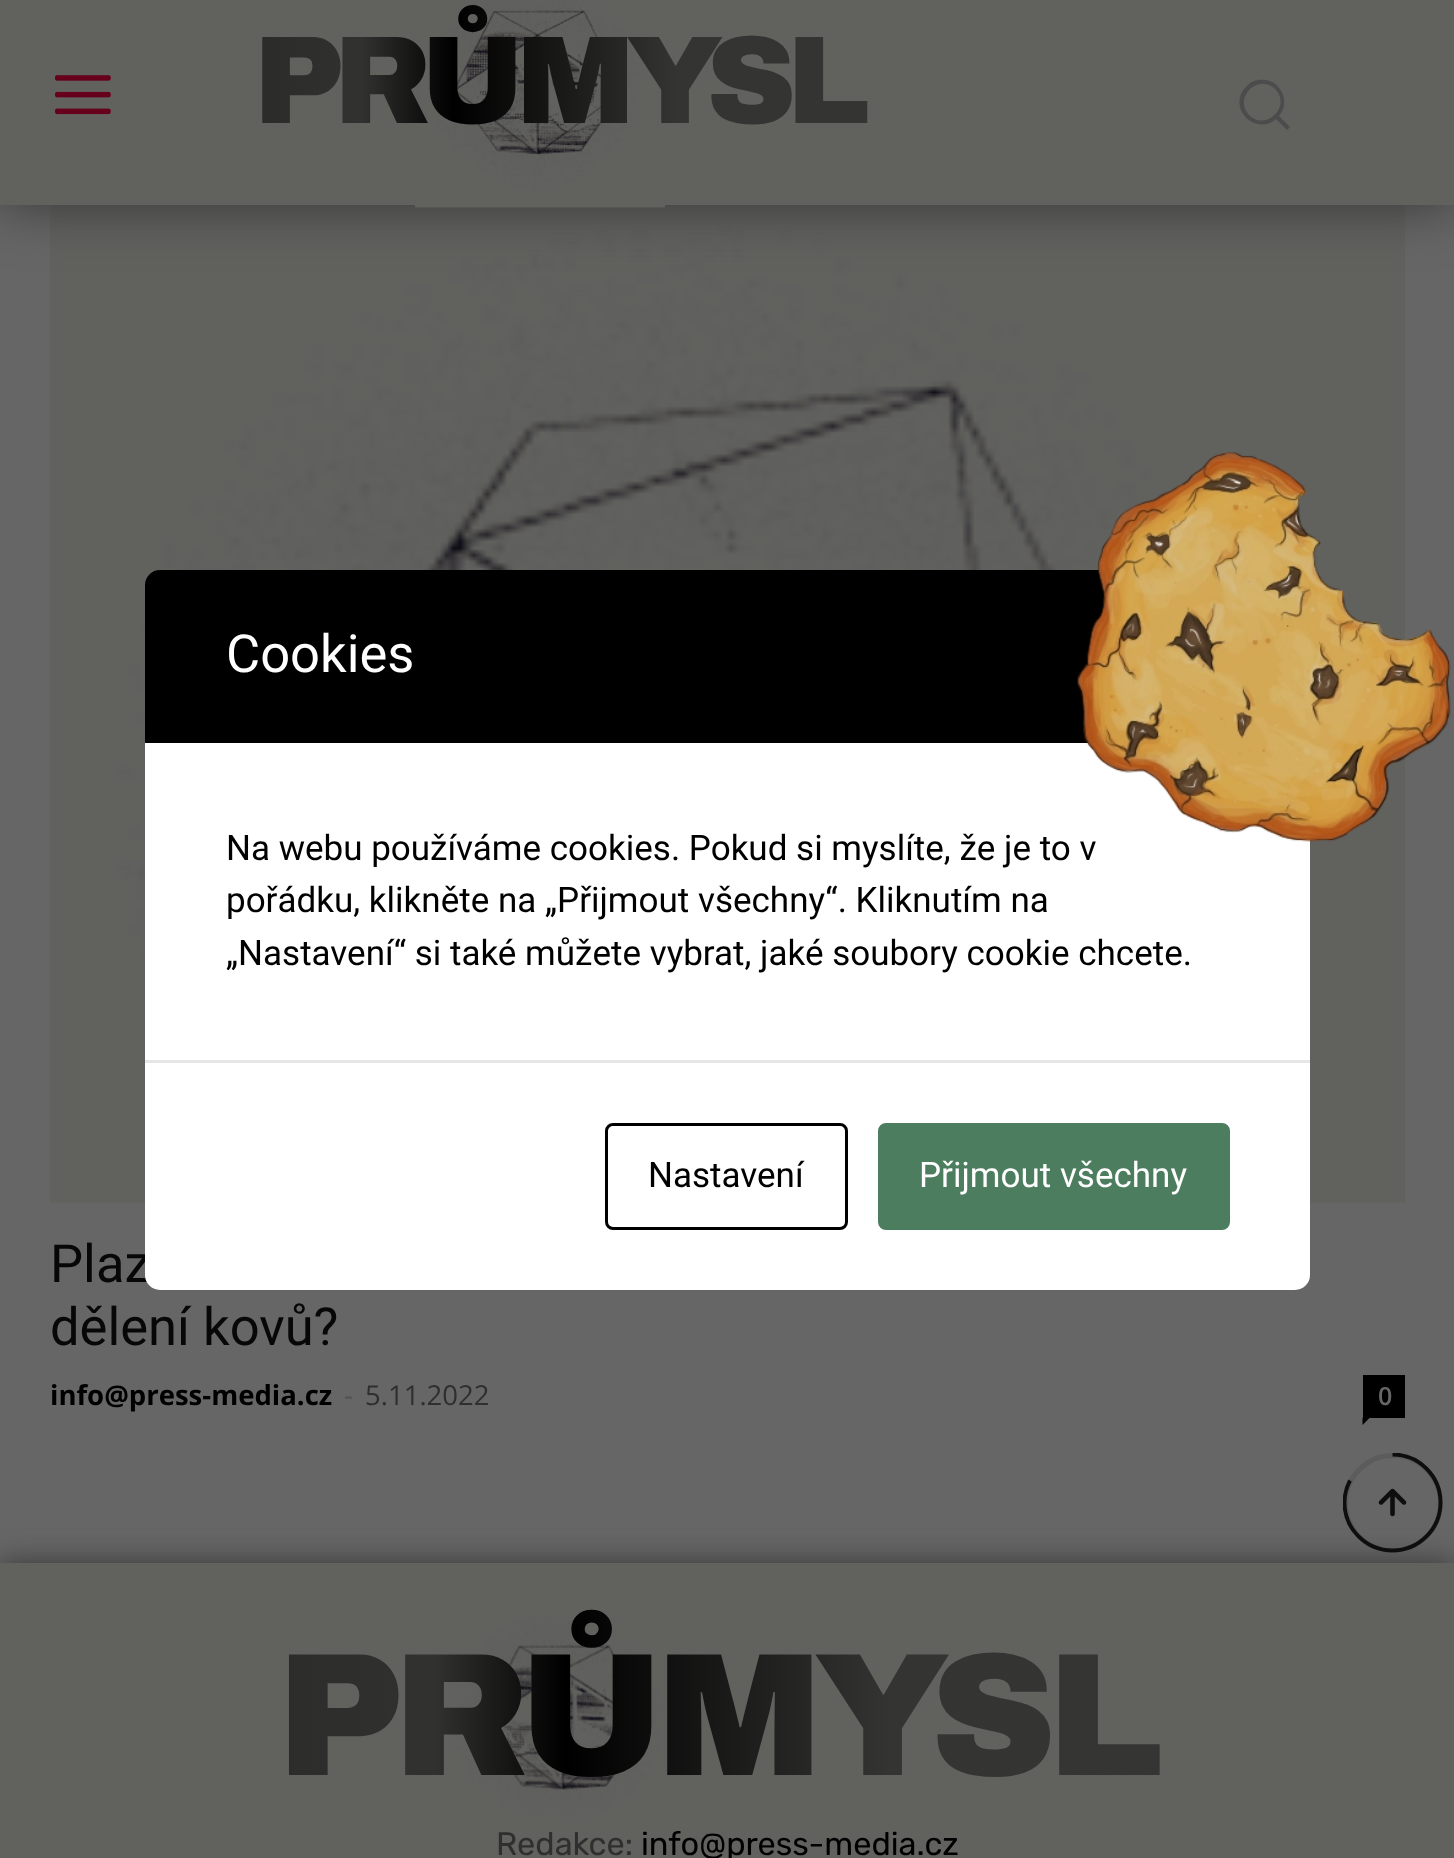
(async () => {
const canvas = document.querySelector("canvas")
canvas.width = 1454
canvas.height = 1858
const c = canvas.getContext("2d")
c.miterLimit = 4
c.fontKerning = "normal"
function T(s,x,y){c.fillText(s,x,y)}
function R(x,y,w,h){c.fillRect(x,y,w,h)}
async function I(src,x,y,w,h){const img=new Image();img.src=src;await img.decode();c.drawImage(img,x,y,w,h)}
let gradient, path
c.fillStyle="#666"
R(0,0,1454,1858)
await I("3.png",50,205,1355,998)
c.fillStyle="#363636"
c.filter="blur(27.5px)"
c.beginPath()
c.rect(0,0,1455,205)
c.fill()
c.filter="none"
c.fillStyle="#61615e"
R(0,0,1454,205)
await I("1.png",55,75,56,40)
await I("2.png",415,0,250,208)
c.letterSpacing="-10px"
c.font="900 125px Archivo"
gradient = c.createLinearGradient(253,81,860,81)
gradient.addColorStop(0,"#2b2b2a")
gradient.addColorStop(.18,"#313130")
gradient.addColorStop(.33,"#000")
gradient.addColorStop(.7,"#343432")
gradient.addColorStop(1,"#343533")
c.fillStyle = gradient
T("PRŮMYSL",253,123)
c.fillStyle="#4c4c4c"
path = new Path2D("M1290 127l-11-11c9-10 6-25-5-33c-6-4-14-4-20-2c-5 2-9 6-12 11c-11 21 16 43 34 27l11 11zm-41-12c-16-17 9-42 26-26c17 17-9 43-26 26z")
c.fill(path)
c.letterSpacing="0px"
c.font="52.5px Roboto"
c.fillStyle="#070707"
T("Plaz",50,1282)
T("dělení kovů?",50,1345)
c.font="bold 27.5px Open Sans"
c.fillStyle="#000"
T("info@press-media.cz",50,1405)
c.font="27.5px Open Sans"
c.fillStyle="#525252"
T("-",344,1405)
c.fillStyle="#2f2f2f"
T("5.11.2022",365,1405)
c.fillStyle="#000"
R(1363,1375,42,43)
c.font="600 25px Open Sans"
c.fillStyle="#666"
T("0",1378,1405)
c.fillStyle="#000"
path = new Path2D("M1362.5 1417.5h7.5l-7.5 7.5z")
c.fill(path)
c.fillStyle="#363636"
c.filter="blur(15px)"
c.beginPath()
c.rect(0,1563,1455,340)
c.fill()
c.filter="none"
c.fillStyle="#61615e"
R(0,1563,1454,295)
await I("4.png",454,1616,209,202)
c.letterSpacing="-10px"
c.font="900 175px Archivo"
gradient = c.createLinearGradient(276,1718,1154,1718)
gradient.addColorStop(0,"#2c2c2a")
gradient.addColorStop(.18,"#313230")
gradient.addColorStop(.33,"#000")
gradient.addColorStop(.7,"#343433")
gradient.addColorStop(1,"#353534")
c.fillStyle = gradient
T("PRŮMYSL",276,1775)
c.letterSpacing="0px"
c.font="300 32.5px Rubik"
c.fillStyle="#2f2f2f"
T("Redakce:",496,1855)
c.fillStyle="#000"
T("info@press-media.cz",641,1855)
c.beginPath()
c.roundRect(145,570,1165,173,[15,15,0,0])
c.fill()
c.font="52.5px Roboto"
c.fillStyle="#fff"
T("Cookies",226,672)
R(145,743,1165,317)
c.font="35px Roboto"
c.fillStyle="#000"
T("Na webu používáme cookies. Pokud si myslíte, že je to v",226,860)
await I("5.png",1077,452,374,390)
T("pořádku, klikněte na „Přijmout všechny“. Kliknutím na",226,912)
T("„Nastavení“ si také můžete vybrat, jaké soubory cookie chcete.",226,965)
c.fillStyle="#fff"
c.beginPath()
c.roundRect(145,1060,1165,230,[0,0,15,15])
c.fill()
c.fillStyle="#e6e6e6"
R(145,1060,1165,3)
c.beginPath()
c.roundRect(606.5,1124.5,240,104,6.5)
c.strokeStyle="#000"
c.lineWidth=3
c.stroke()
c.fillStyle="#000"
T("Nastavení",648,1187)
c.fillStyle="#4b7d5e"
c.beginPath()
c.roundRect(879.5,1124.5,349,104,6.5)
c.fill()
c.strokeStyle="#4b7d5e"
c.stroke()
c.fillStyle="#fff"
T("Přijmout všechny",919,1187)
c.beginPath()
c.arc(1393,1503,47.5,0,7)
c.strokeStyle="#5c5c5c"
c.lineWidth=5
c.stroke()
c.save()
c.beginPath()
c.rect(1343,1453,100,100)
c.clip()
path = new Path2D("M1392.5 1454.5c26.5 0 48 21.5 48 48c0 26.5-21.5 48-48 48c-26.5 0-48-21.5-48-48c0-8 2-15.5 5.5-22")
c.strokeStyle="#0e0e0e"
c.lineWidth=3.9
c.stroke(path)
c.restore()
await I("6.png",1378,1488,29,29)
})()
